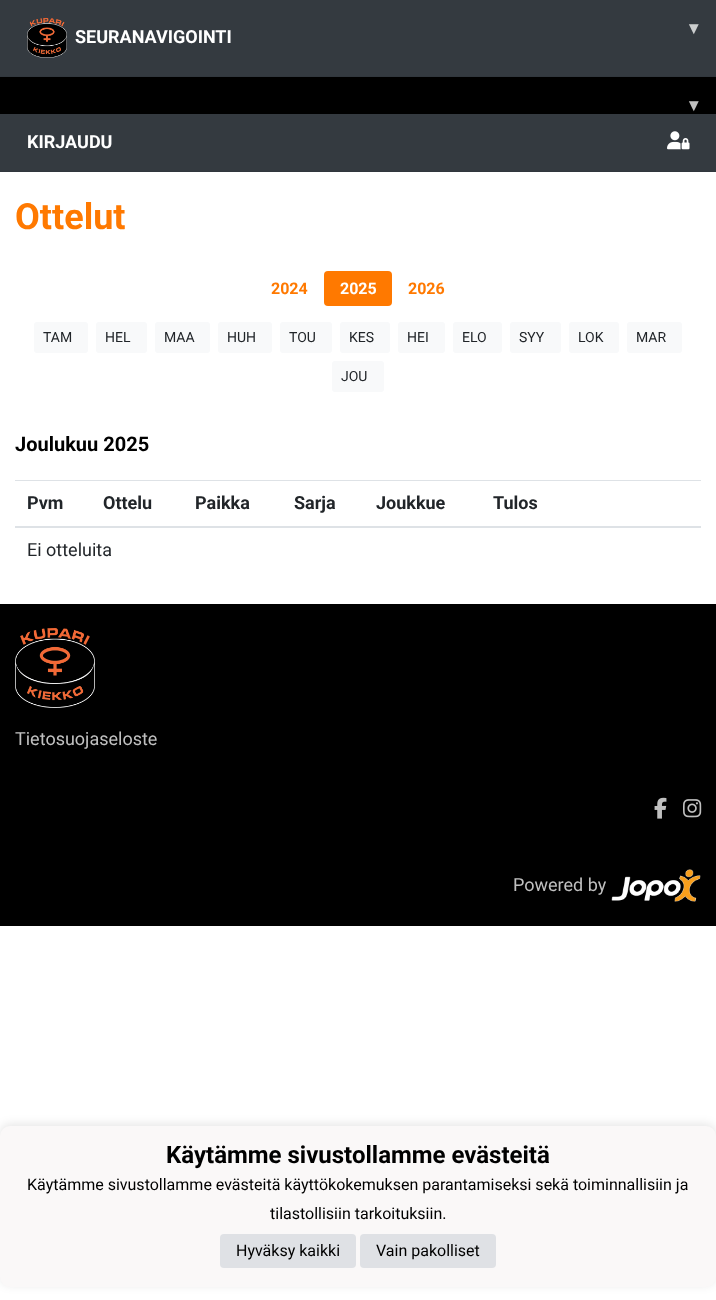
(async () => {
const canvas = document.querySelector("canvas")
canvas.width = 716
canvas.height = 1300
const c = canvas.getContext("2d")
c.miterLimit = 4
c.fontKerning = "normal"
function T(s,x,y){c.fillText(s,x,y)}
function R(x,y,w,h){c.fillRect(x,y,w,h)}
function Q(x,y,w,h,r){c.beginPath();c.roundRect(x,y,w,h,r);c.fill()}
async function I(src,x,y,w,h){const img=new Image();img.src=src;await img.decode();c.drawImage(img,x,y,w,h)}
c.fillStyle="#fff"
R(0,0,716,1300)
c.fillStyle="#343a40"
R(0,0,716,76)
c.fillStyle="#31373d"
R(0,76,716,1)
await I("1.png",27,18,40,40)
c.font="bold 18px DejaVu Sans"
c.fillStyle="#cccecf"
T("▾",689,34)
c.font="bold 18px Roboto"
c.fillStyle="#fff"
T("SEURANAVIGOINTI",75,43)
c.fillStyle="#000"
R(0,77,716,37)
c.font="bold 18px DejaVu Sans"
c.fillStyle="#c0c0c0"
T("▾",689,111)
c.fillStyle="#343a40"
R(0,114,716,57)
c.fillStyle="#31373d"
R(0,171,716,1)
c.font="bold 18px Roboto"
c.fillStyle="#fff"
T("KIRJAUDU",27,148)
await I("2.png",667,131,23,19)
c.font="bold 36px Roboto"
c.fillStyle="#ff7900"
T("Ottelut",15,229)
c.font="bold 16px Roboto"
T("2024",271,294)
Q(324,271,68,35,4)
c.fillStyle="#fff"
T("2025",340,294)
c.fillStyle="#ff7900"
T("2026",408,294)
c.fillStyle="#f8f9fa"
Q(34,322,54,31,3)
c.font="14px Roboto"
c.fillStyle="#212529"
T("TAM",43,342)
c.fillStyle="#f8f9fa"
Q(96,322,51,31,3)
c.fillStyle="#212529"
T("HEL",105,342)
c.fillStyle="#f8f9fa"
Q(155,322,55,31,3)
c.fillStyle="#212529"
T("MAA",164,342)
c.fillStyle="#f8f9fa"
Q(218,322,54,31,3)
c.fillStyle="#212529"
T("HUH",227,342)
c.fillStyle="#f8f9fa"
Q(280,322,52,31,3)
c.fillStyle="#212529"
T("TOU",289,342)
c.fillStyle="#f8f9fa"
Q(340,322,50,31,3)
c.fillStyle="#212529"
T("KES",349,342)
c.fillStyle="#f8f9fa"
Q(398,322,47,31,3)
c.fillStyle="#212529"
T("HEI",407,342)
c.fillStyle="#f8f9fa"
Q(453,322,49,31,3)
c.fillStyle="#212529"
T("ELO",462,342)
c.fillStyle="#f8f9fa"
Q(510,322,51,31,3)
c.fillStyle="#212529"
T("SYY",519,342)
c.fillStyle="#f8f9fa"
Q(569,322,50,31,3)
c.fillStyle="#212529"
T("LOK",578,342)
c.fillStyle="#f8f9fa"
Q(627,322,55,31,3)
c.fillStyle="#212529"
T("MAR",636,342)
c.fillStyle="#f8f9fa"
Q(332,361,52,31,3)
c.fillStyle="#212529"
T("JOU",341,381)
c.font="bold 20px Roboto"
c.fillStyle="#000"
T("Joulukuu 2025",15,451)
c.font="bold 18px Roboto"
c.fillStyle="#212529"
T("Pvm",27,509)
T("Ottelu",103,509)
T("Paikka",195,509)
T("Sarja",294,509)
T("Joukkue",376,509)
c.fillStyle="#dee2e6"
R(15,480,686,1)
R(15,526,686,2)
c.fillStyle="#212529"
T("Tulos",493,509)
c.font="18px Roboto"
T("Ei otteluita",27,556)
c.fillStyle="#000"
R(0,604,716,322)
await I("3.png",15,628,80,80)
c.fillStyle="#c0c0c0"
T("Tietosuojaseloste",15,745)
await I("4.png",654,797,13,22)
await I("5.png",683,799,19,19)
T("Powered by",513,891)
await I("6.png",611,869,90,33)
c.fillStyle="#0000001a"
c.filter="blur(5px)"
c.beginPath()
c.roundRect(0,1124,716,161,10)
c.fill()
c.filter="none"
c.fillStyle="#faf8f8"
Q(0,1126,716,161,10)
c.font="bold 24px Roboto"
c.fillStyle="#000"
T("Käytämme sivustollamme evästeitä",166,1163)
c.font="16px Roboto"
T("Käytämme sivustollamme evästeitä käyttökokemuksen parantamiseksi sekä toiminnallisiin ja",27,1190)
T("tilastollisiin tarkoituksiin.",270,1219)
c.fillStyle="#dfe1e5"
Q(220,1234,136,34,4)
c.fillStyle="#000"
T("Hyväksy kaikki",236,1256)
c.fillStyle="#dfe1e5"
Q(360,1234,136,34,4)
c.fillStyle="#000"
T("Vain pakolliset",376,1256)
})()
